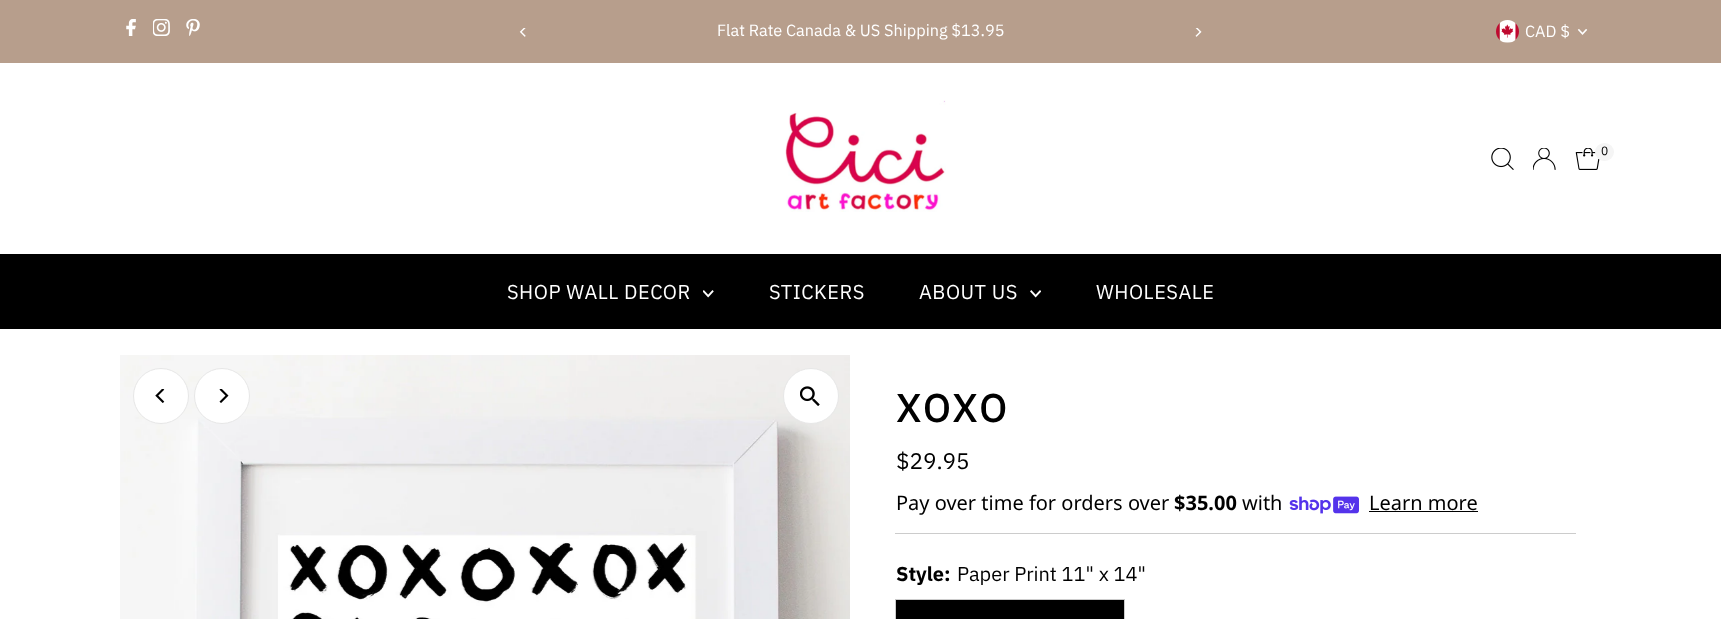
(async () => {
const canvas = document.querySelector("canvas")
canvas.width = 1721
canvas.height = 619
const c = canvas.getContext("2d")
c.miterLimit = 4
c.fontKerning = "normal"
function T(s,x,y){c.fillText(s,x,y)}
function R(x,y,w,h){c.fillRect(x,y,w,h)}
function Q(x,y,w,h,r){c.beginPath();c.roundRect(x,y,w,h,r);c.fill()}
async function I(src,x,y,w,h){const img=new Image();img.src=src;await img.decode();c.drawImage(img,x,y,w,h)}
c.fillStyle="#fff"
R(0,0,1721,619)
c.fillStyle="#b79e8c"
R(0,0,1721,63)
await I("1.png",126,19,10,17)
await I("2.png",153,19,17,17)
await I("3.png",186,19,14,17)
await I("4.png",519,28,7,9)
c.font="16.25px IBM Plex Sans"
c.fillStyle="#fff"
T("Flat Rate Canada & US Shipping $13.95",717,36)
await I("5.png",1195,28,7,9)
await I("6.png",1496,20,23,23)
T("CAD $",1525,37)
await I("7.png",1577,29,11,6)
await I("8.png",785,100,161,112)
await I("9.png",1491,148,23,22)
await I("10.png",1533,148,23,22)
await I("11.png",1575,148,25,22)
c.fillStyle="#f5f5f5"
Q(1595,143,19,18,9)
c.font="12px IBM Plex Sans"
c.fillStyle="#000"
T("0",1601,155)
R(0,254,1721,75)
c.letterSpacing="0.5px"
c.font="20px IBM Plex Sans"
c.fillStyle="#fff"
T("SHOP WALL DECOR",507,299)
await I("12.png",703,290,11,8)
T("STICKERS",769,299)
T("ABOUT US",919,299)
await I("13.png",1030,290,11,8)
T("WHOLESALE",1096,299)
await I("14.png",120,355,730,264)
c.beginPath()
c.arc(811,396,27.5,0,7)
c.fill()
c.strokeStyle="#e7e7e7"
c.stroke()
await I("15.png",800,386,20,20)
c.beginPath()
c.arc(161,396,27.5,0,7)
c.fill()
c.stroke()
await I("16.png",155,389,10,14)
c.beginPath()
c.arc(222,396,27.5,0,7)
c.fill()
c.stroke()
await I("17.png",219,389,10,14)
c.fillStyle="#ccc"
R(895,533,681,1)
c.letterSpacing="2px"
c.font="500 40px IBM Plex Sans"
c.fillStyle="#000"
T("XOXO",896,422)
c.letterSpacing="0px"
c.font="22.5px IBM Plex Sans"
T("$29.95",896,469)
c.font="20px Noto Sans"
T("Pay over time for orders over",896,510)
c.font="bold 20px Noto Sans"
T("$35.00",1174,510)
c.font="20px Noto Sans"
T("with",1242,510)
await I("18.png",1289,496,70,18)
T("Learn more",1369,510)
R(1369,511,109,1)
c.font="bold 20px IBM Plex Sans"
T("Style:",896,581)
c.font="20px IBM Plex Sans"
T("Paper Print 11\" x 14\"",957,581)
c.beginPath()
c.rect(895.5,599.5,229,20)
c.fill()
c.strokeStyle="#ccc"
c.stroke()
})()
